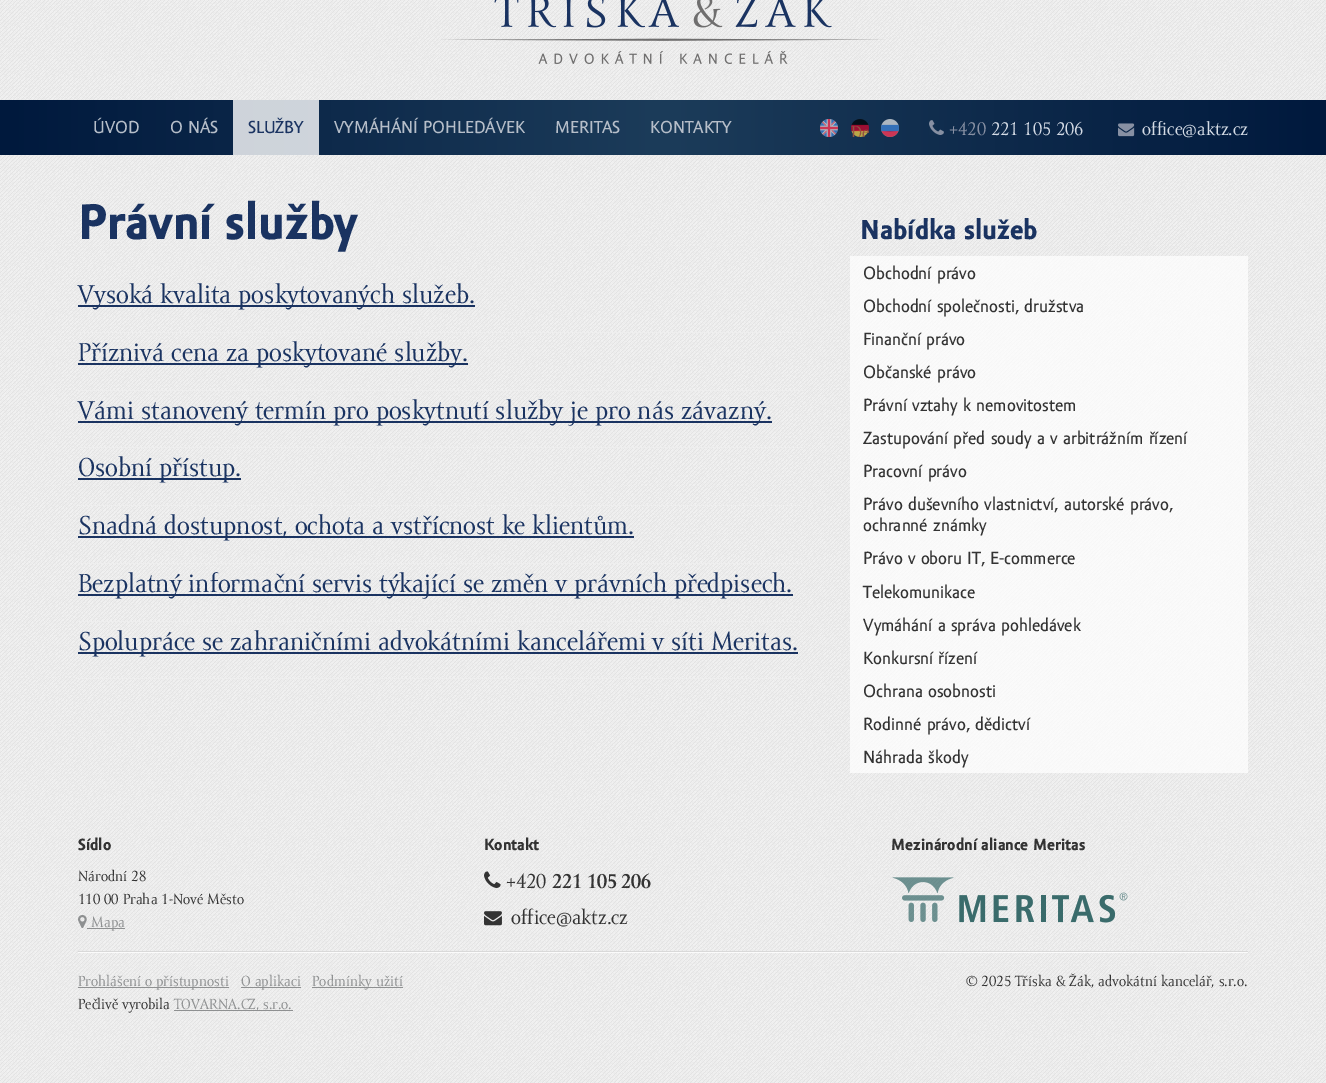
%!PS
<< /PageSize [1326 1083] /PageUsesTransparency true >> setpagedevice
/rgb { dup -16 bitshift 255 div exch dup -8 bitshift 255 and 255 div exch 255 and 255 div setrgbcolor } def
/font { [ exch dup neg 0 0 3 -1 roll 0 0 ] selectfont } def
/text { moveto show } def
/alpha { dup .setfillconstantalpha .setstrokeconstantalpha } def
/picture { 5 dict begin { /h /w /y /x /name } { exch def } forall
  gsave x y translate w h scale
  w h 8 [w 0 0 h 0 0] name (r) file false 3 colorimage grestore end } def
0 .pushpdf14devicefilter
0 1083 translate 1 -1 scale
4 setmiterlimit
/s1 { /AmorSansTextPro-Regular 16 font 16#B6BEC9 rgb } def
/s2 { /AmorSansTextPro-Regular 16 font 16#1A3361 rgb } def
/s3 { /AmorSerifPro-Regular 18 font 16#945340 rgb } def
/s4 { /AmorSerifPro-Regular 19 font 16#8790A3 rgb } def
/s5 { /AmorSerifPro-Regular 19 font 16#D4DBE5 rgb } def
/s6 { /AmorSansTextPro-Bold 47 font 16#1A3361 rgb } def
/s7 { /AmorSerifPro-Regular 27 font 16#1A3361 rgb } def
/s8 { /AmorSansTextPro-Bold 26 font 16#1A3361 rgb } def
/s9 { /AmorSansTextPro-Regular 16.25 font 16#333333 rgb } def
/s10 { /AmorSansTextPro-Bold 15.25 font 16#333333 rgb } def
/s11 { /AmorSerifPro-Regular 15.25 font 16#333333 rgb } def
/s12 { /AmorSerifPro-Regular 15.25 font 16#8E9091 rgb } def
/s13 { /AmorSerifPro-Regular 21 font 16#333333 rgb } def
/s14 { /AmorSerifPro-Bold 21 font 16#333333 rgb } def
16#FFFFFF rgb
0 0 1326 1083 rectfill
(pic1.raw) 0 0 1326 1083 picture
(pic2.raw) 441 0 444 64 picture
gsave 0 100 moveto 1326 100 lineto 1326 155 lineto 0 155 lineto closepath clip newpath
<< /ShadingType 2 /ColorSpace /DeviceRGB /Coords [0 128 1326 127] /Extend [true true] /Function << /FunctionType 3 /Domain [0 1] /Functions [<< /FunctionType 2 /Domain [0 1] /C0 [0 0.098 0.239] /C1 [0.11 0.235 0.353] /N 1 >> << /FunctionType 2 /Domain [0 1] /C0 [0.11 0.235 0.353] /C1 [0 0.098 0.239] /N 1 >>] /Bounds [0.5] /Encode [0 1 0 1] >> >> shfill grestore
s1
(ÚVOD) 93 133 text
(O NÁS) 170 133 text
0.8 alpha
16#FFFFFF rgb
233 100 86 55 rectfill
1 alpha
s2
(SLUŽBY) 248 133 text
s1
(VYMÁHÁNÍ POHLEDÁVEK) 334 133 text
(MERITAS) 555 133 text
(KONTAKTY) 650 133 text
(pic3.raw) 820 119 18 18 picture
(pic4.raw) 851 119 18 18 picture
gsave
851 119 18 18 rectclip
s3
(De) 851 138 text
grestore
(pic5.raw) 881 119 18 18 picture
(pic6.raw) 929 120 15 15 picture
s4
(+420) 949 135 text
s5
(221 105 206) 991 135 text
(pic7.raw) 1118 123 17 14 picture
(office@aktz.cz) 1142 135 text
s6
(Právní služby) 78 239 text
16#EEEEEE rgb
78 332 725 1 rectfill
16#1A3361 rgb
78 305 397 2 rectfill
s7
(Vysoká kvalita poskytovaných služeb.) 78 303 text
16#EEEEEE rgb
78 390 725 1 rectfill
16#1A3361 rgb
78 363 390 2 rectfill
(Příznivá cena za poskytované služby.) 78 361 text
16#EEEEEE rgb
78 447 725 1 rectfill
16#1A3361 rgb
78 421 694 2 rectfill
(Vámi stanovený termín pro poskytnutí služby je pro nás závazný.) 78 419 text
16#EEEEEE rgb
78 505 725 1 rectfill
16#1A3361 rgb
78 478 163 2 rectfill
(Osobní přístup.) 78 476 text
16#EEEEEE rgb
78 563 725 1 rectfill
16#1A3361 rgb
78 536 556 2 rectfill
(Snadná dostupnost, ochota a vstřícnost ke klientům.) 78 534 text
16#EEEEEE rgb
78 621 725 1 rectfill
16#1A3361 rgb
78 594 715 2 rectfill
(Bezplatný informační servis týkající se změn v právních předpisech.) 78 592 text
16#EEEEEE rgb
78 678 725 1 rectfill
16#1A3361 rgb
78 652 720 2 rectfill
(Spolupráce se zahraničními advokátními kancelářemi v síti Meritas.) 78 650 text
s8
(Nabídka služeb) 860 239 text
0.7 alpha
16#FFFFFF rgb
850 256 398 33 rectfill
1 alpha
s9
(Obchodní právo) 863 279 text
0.7 alpha
16#FFFFFF rgb
850 289 398 33 rectfill
1 alpha
s9
(Obchodní společnosti, družstva) 863 312 text
0.7 alpha
16#FFFFFF rgb
850 322 398 33 rectfill
1 alpha
s9
(Finanční právo) 863 345 text
0.7 alpha
16#FFFFFF rgb
850 355 398 33 rectfill
1 alpha
s9
(Občanské právo) 863 378 text
0.7 alpha
16#FFFFFF rgb
850 388 398 33 rectfill
1 alpha
s9
(Právní vztahy k nemovitostem) 863 411 text
0.7 alpha
16#FFFFFF rgb
850 421 398 33 rectfill
1 alpha
s9
(Zastupování před soudy a v arbitrážním řízení) 863 444 text
0.7 alpha
16#FFFFFF rgb
850 454 398 33 rectfill
1 alpha
s9
(Pracovní právo) 863 477 text
0.7 alpha
16#FFFFFF rgb
850 487 398 54 rectfill
1 alpha
s9
(Právo duševního vlastnictví, autorské právo,) 863 510 text
(ochranné známky) 863 531 text
0.7 alpha
16#FFFFFF rgb
850 541 398 34 rectfill
1 alpha
s9
(Právo v oboru IT, E-commerce) 863 564 text
0.7 alpha
16#FFFFFF rgb
850 575 398 33 rectfill
1 alpha
s9
(Telekomunikace) 863 598 text
0.7 alpha
16#FFFFFF rgb
850 608 398 33 rectfill
1 alpha
s9
(Vymáhání a správa pohledávek) 863 631 text
0.7 alpha
16#FFFFFF rgb
850 641 398 33 rectfill
1 alpha
s9
(Konkursní řízení) 863 664 text
0.7 alpha
16#FFFFFF rgb
850 674 398 33 rectfill
1 alpha
s9
(Ochrana osobnosti) 863 697 text
0.7 alpha
16#FFFFFF rgb
850 707 398 33 rectfill
1 alpha
s9
(Rodinné právo, dědictví) 863 730 text
0.7 alpha
16#FFFFFF rgb
850 740 398 33 rectfill
1 alpha
s9
(Náhrada škody) 863 763 text
s10
(Sídlo) 78 850 text
s11
(Národní 28) 78 881 text
(110 00 Praha 1-Nové Město) 78 904 text
(pic8.raw) 78 915 9 13 picture
16#8E9091 rgb
87 928 38 1 rectfill
(Mapa) 91 927 text
s10
(Kontakt) 484 850 text
(pic9.raw) 484 871 17 17 picture
s13
(+420) 506 888 text
s14
(221 105 206) 552 888 text
(pic10.raw) 484 911 18 15 picture
s13
(office@aktz.cz) 511 924 text
s10
(Mezinárodní aliance Meritas) 891 850 text
(pic11.raw) 892 877 236 46 picture
16#D9D9D9 rgb
78 951 1170 1 rectfill
16#FBFBFB rgb
78 952 1170 1 rectfill
16#8E9091 rgb
78 987 151 1 rectfill
s12
(Prohlášení o přístupnosti) 78 986 text
241 987 60 1 rectfill
(O aplikaci) 241 986 text
312 987 91 1 rectfill
(Podmínky užití) 312 986 text
s11
(© 2025 Tříska & Žák, advokátní kancelář, s.r.o.) 966 986 text
(Pečlivě vyrobila) 78 1009 text
16#8E9091 rgb
174 1010 119 1 rectfill
(TOVARNA.CZ, s.r.o.) 174 1009 text
.poppdf14devicefilter showpage
